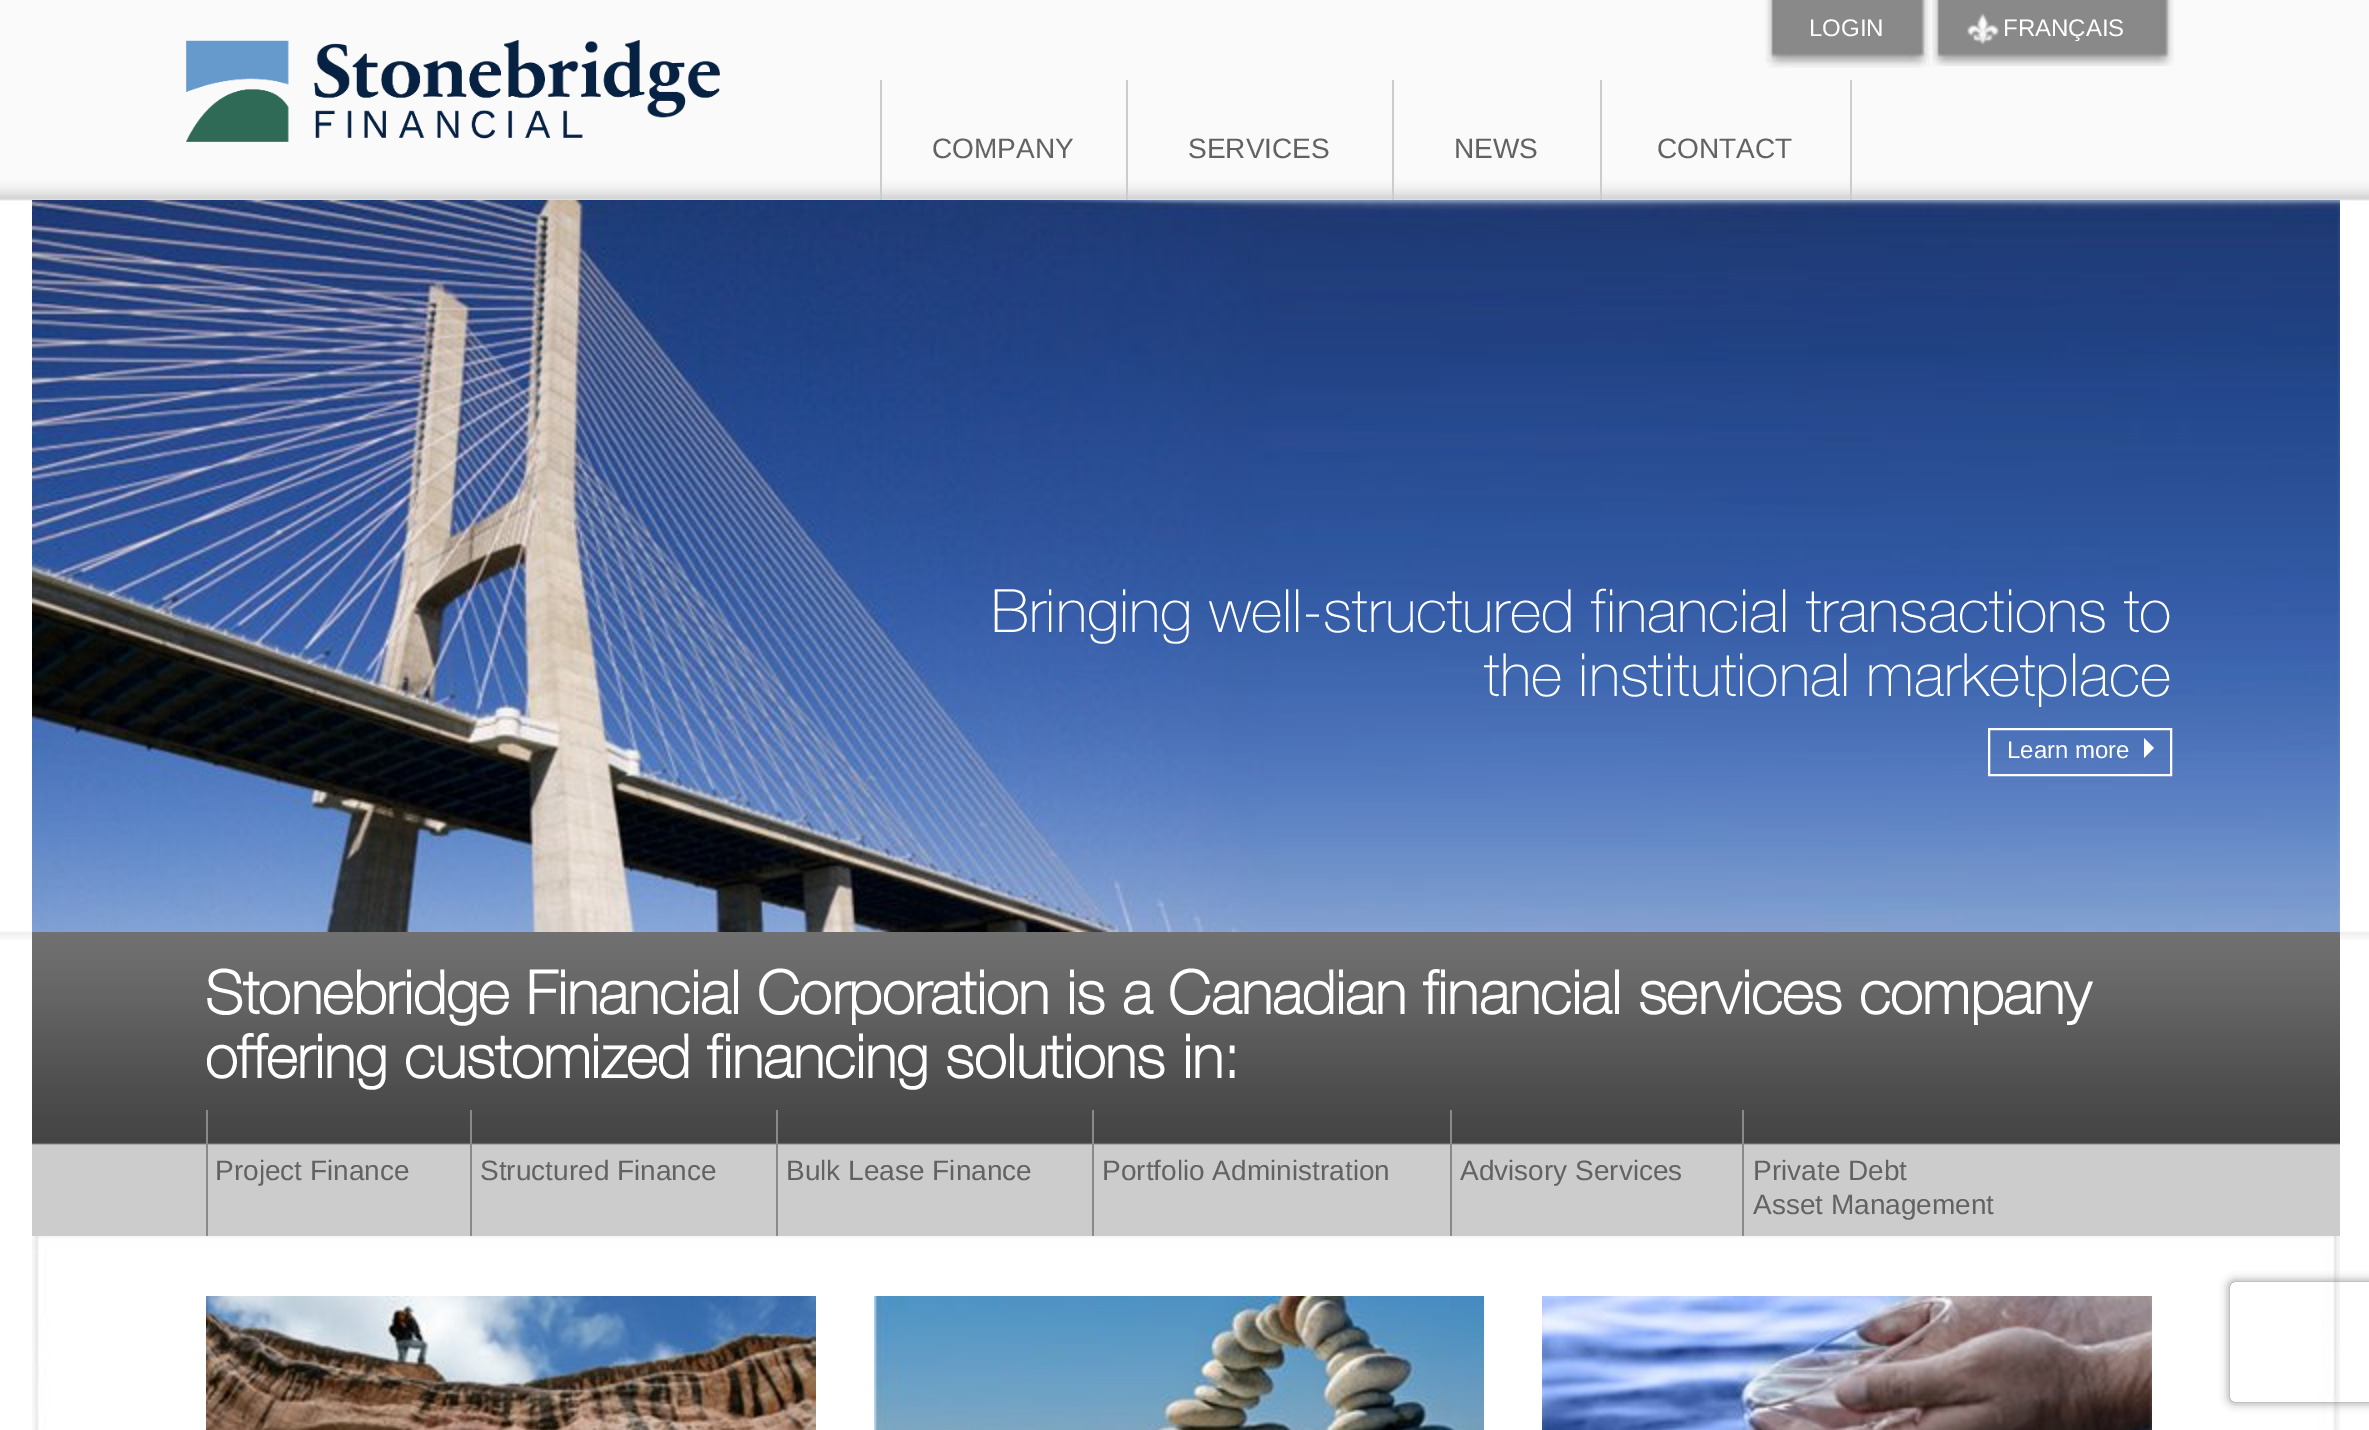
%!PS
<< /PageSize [2369 1430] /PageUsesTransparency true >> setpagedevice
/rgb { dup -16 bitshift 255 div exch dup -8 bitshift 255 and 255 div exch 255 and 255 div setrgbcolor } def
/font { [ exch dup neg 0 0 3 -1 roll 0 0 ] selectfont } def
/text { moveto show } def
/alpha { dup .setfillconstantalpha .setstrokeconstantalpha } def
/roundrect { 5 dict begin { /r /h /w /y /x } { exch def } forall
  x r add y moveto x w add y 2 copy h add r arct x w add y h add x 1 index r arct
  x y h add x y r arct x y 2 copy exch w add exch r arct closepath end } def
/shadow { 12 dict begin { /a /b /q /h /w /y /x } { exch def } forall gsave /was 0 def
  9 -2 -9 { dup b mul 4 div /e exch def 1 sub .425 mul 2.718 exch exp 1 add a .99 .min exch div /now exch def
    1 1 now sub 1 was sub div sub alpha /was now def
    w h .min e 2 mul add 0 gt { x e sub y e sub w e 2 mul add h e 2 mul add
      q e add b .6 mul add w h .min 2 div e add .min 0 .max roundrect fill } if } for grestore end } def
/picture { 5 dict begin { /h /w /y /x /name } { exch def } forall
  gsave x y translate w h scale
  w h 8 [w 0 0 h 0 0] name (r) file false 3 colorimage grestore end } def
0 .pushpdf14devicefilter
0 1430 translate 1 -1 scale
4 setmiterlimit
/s1 { /LiberationSans-Regular 24 font 16#FFFFFF rgb } def
/s2 { /LiberationSans-Regular 28 font 16#626262 rgb } def
/s3 { /HelveticaNeue-Thin 60 font 16#FFFFFF rgb } def
/s4 { /HelveticaNeue-Bold 60 font 16#FFFFFF rgb } def
16#FFFFFF rgb
0 0 2369 1430 rectfill
(pic1.raw) 0 0 2369 940 picture
(pic2.raw) 1765 0 166 68 picture
s1
(LOGIN) 1809 36 text
(pic3.raw) 1932 0 242 66 picture
(pic4.raw) 1967 13 32 32 picture
(FRANÇAIS) 2003 36 text
(pic5.raw) 186 40 534 102 picture
16#CCCCCC rgb
1126 80 2 120 rectfill
880 80 2 120 rectfill
s2
(COMPANY) 932 158 text
16#CCCCCC rgb
1392 80 2 120 rectfill
s2
(SERVICES) 1188 158 text
16#CCCCCC rgb
1600 80 2 120 rectfill
s2
(NEWS) 1454 158 text
16#CCCCCC rgb
1850 80 2 120 rectfill
s2
(CONTACT) 1657 158 text
(pic6.raw) 32 200 2308 732 picture
s3
(Bringing well-structured financial transactions to) 991 632 text
(the institutional marketplace) 1484 696 text
2 setlinewidth
1989 729 182 46 rectstroke
s1
(Learn more) 2007 758 text
2144 758 moveto 2144 738 lineto 2154 748 lineto closepath fill
16#CCCCCC rgb
32 1145 2308 91 rectfill
(pic7.raw) 32 932 2308 213 picture
s4
(Stonebridge Financial Corporation is a Canadian financial services company) 205 1014 text
(offering customized financing solutions in:) 205 1078 text
16#898989 rgb
206 1110 2 126 rectfill
s2
(Project Finance) 215 1180 text
16#898989 rgb
470 1110 2 126 rectfill
s2
(Structured Finance) 480 1180 text
16#898989 rgb
776 1110 2 126 rectfill
s2
(Bulk Lease Finance) 786 1180 text
16#898989 rgb
1092 1110 2 126 rectfill
s2
(Portfolio Administration) 1102 1180 text
16#898989 rgb
1450 1110 2 126 rectfill
s2
(Advisory Services) 1460 1180 text
16#898989 rgb
1742 1110 2 126 rectfill
s2
(Private Debt) 1753 1180 text
(Asset Management) 1753 1214 text
(pic8.raw) 32 1236 2308 194 picture
(pic9.raw) 206 1296 610 134 picture
(pic10.raw) 874 1296 610 134 picture
(pic11.raw) 1542 1296 610 134 picture
gsave
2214 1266 moveto 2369 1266 lineto 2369 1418 lineto 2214 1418 lineto closepath 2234 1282 moveto 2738 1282 lineto 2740 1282 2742 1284 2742 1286 curveto 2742 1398 lineto 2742 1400 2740 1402 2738 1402 curveto 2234 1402 lineto 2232 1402 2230 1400 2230 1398 curveto 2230 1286 lineto 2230 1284 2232 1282 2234 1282 curveto closepath eoclip newpath
16#808080 rgb
2230 1282 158 120 4 5 1 shadow
grestore
.poppdf14devicefilter showpage
